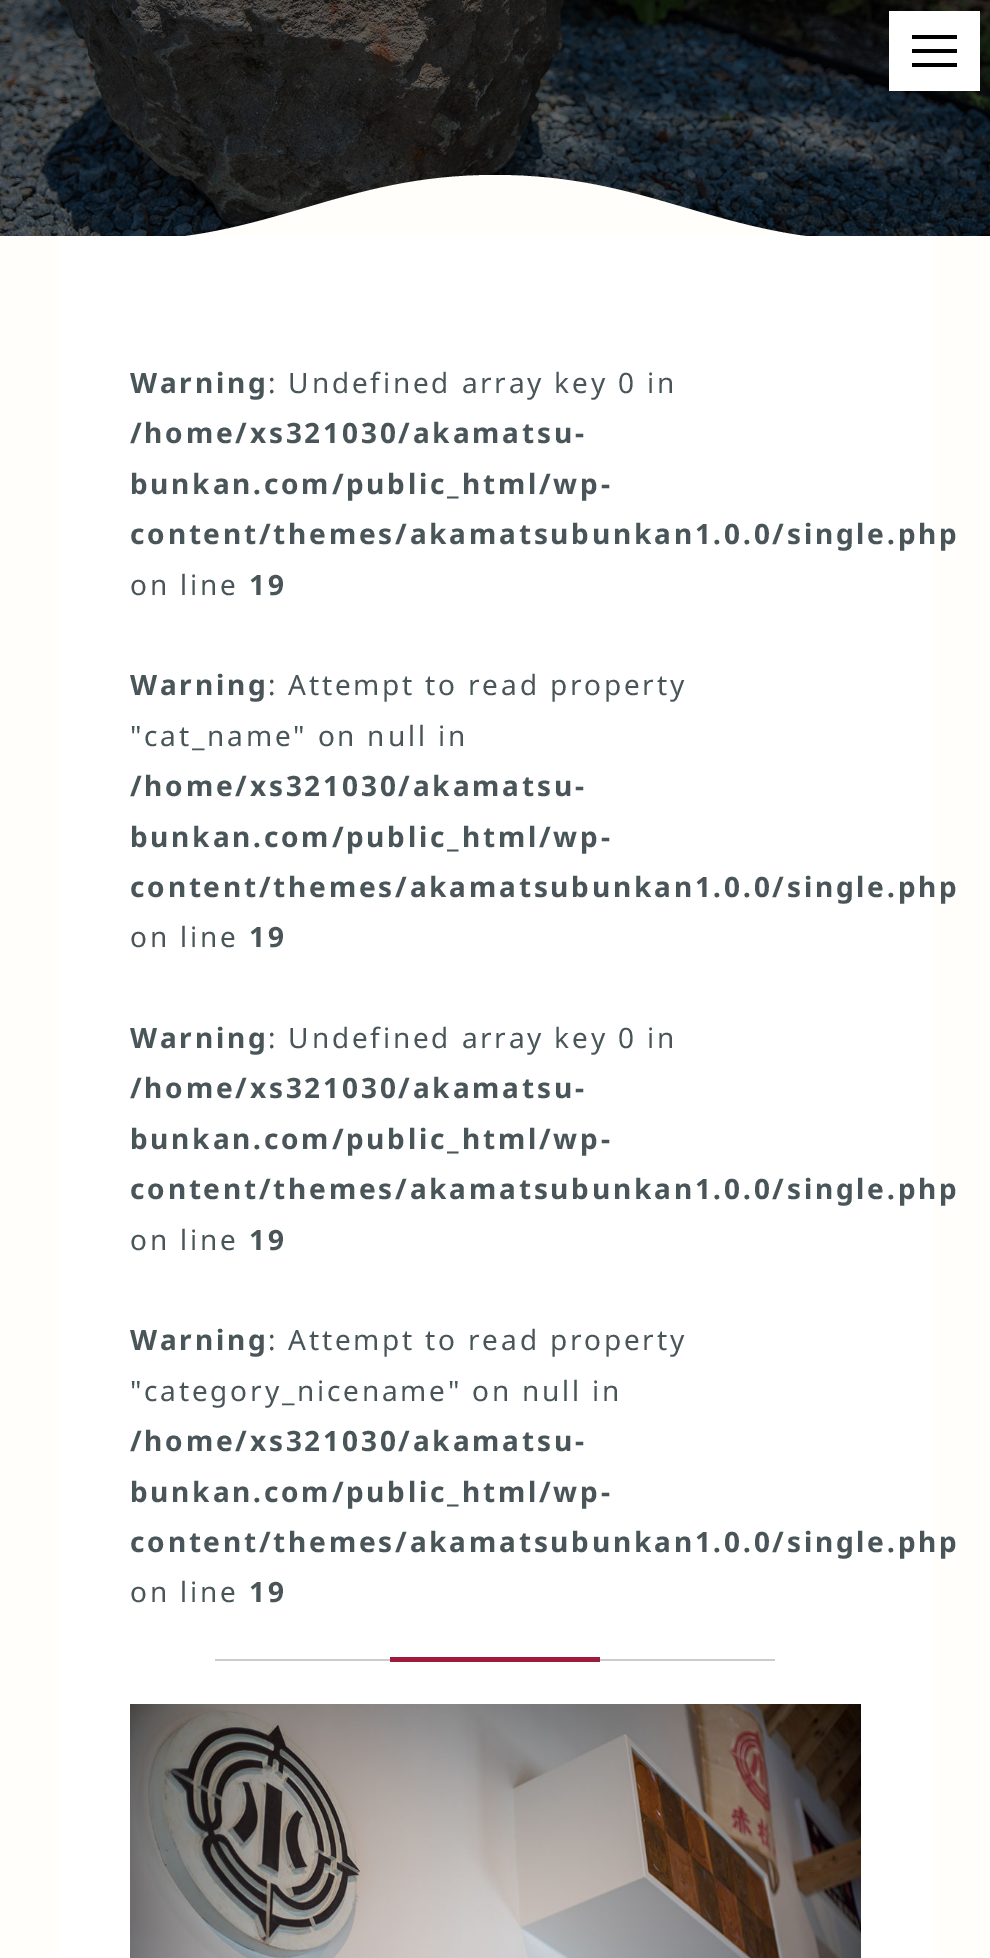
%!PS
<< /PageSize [990 1958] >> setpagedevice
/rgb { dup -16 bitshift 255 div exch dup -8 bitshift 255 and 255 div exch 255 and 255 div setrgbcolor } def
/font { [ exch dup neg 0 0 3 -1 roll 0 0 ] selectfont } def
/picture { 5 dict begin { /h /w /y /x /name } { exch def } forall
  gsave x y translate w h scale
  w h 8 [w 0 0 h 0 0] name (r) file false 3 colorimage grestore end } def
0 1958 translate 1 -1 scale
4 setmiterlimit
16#FFFEFB rgb
0 0 990 1958 rectfill
(pic1.raw) 0 0 990 236 picture
16#FFFFFF rgb
889 11 91 80 rectfill
16#000000 rgb
912 49 45 4 rectfill
912 35 45 4 rectfill
912 63 45 4 rectfill
16#FFFEFB rgb
113 241 moveto 878 241 lineto 720 241 652 175 495 175 curveto 339 175 271 241 113 241 curveto closepath fill
16#FFFFFF rgb
58 236 875 1722 rectfill
/NotoSans-Bold 28 font
16#495559 rgb
130 393 moveto 2.8 0 (Warning) ashow
/NotoSans-Regular 28 font
268 393 moveto 2.8 0 (: Undefined array key 0 in) ashow
/NotoSans-Bold 28 font
130 443 moveto 2.8 0 (/home/xs321030/akamatsu-) ashow
130 494 moveto 2.8 0 (bunkan.com/public_html/wp-) ashow
130 544 moveto 2.8 0 (content/themes/akamatsubunkan1.0.0/single.php) ashow
/NotoSans-Regular 28 font
130 595 moveto 2.8 0 (on line) ashow
/NotoSans-Bold 28 font
249 595 moveto 2.8 0 (19) ashow
130 695 moveto 2.8 0 (Warning) ashow
/NotoSans-Regular 28 font
268 695 moveto 2.8 0 (: Attempt to read property) ashow
130 746 moveto 2.8 0 ("cat_name" on null in) ashow
/NotoSans-Bold 28 font
130 796 moveto 2.8 0 (/home/xs321030/akamatsu-) ashow
130 847 moveto 2.8 0 (bunkan.com/public_html/wp-) ashow
130 897 moveto 2.8 0 (content/themes/akamatsubunkan1.0.0/single.php) ashow
/NotoSans-Regular 28 font
130 947 moveto 2.8 0 (on line) ashow
/NotoSans-Bold 28 font
249 947 moveto 2.8 0 (19) ashow
130 1048 moveto 2.8 0 (Warning) ashow
/NotoSans-Regular 28 font
268 1048 moveto 2.8 0 (: Undefined array key 0 in) ashow
/NotoSans-Bold 28 font
130 1098 moveto 2.8 0 (/home/xs321030/akamatsu-) ashow
130 1149 moveto 2.8 0 (bunkan.com/public_html/wp-) ashow
130 1199 moveto 2.8 0 (content/themes/akamatsubunkan1.0.0/single.php) ashow
/NotoSans-Regular 28 font
130 1250 moveto 2.8 0 (on line) ashow
/NotoSans-Bold 28 font
249 1250 moveto 2.8 0 (19) ashow
130 1350 moveto 2.8 0 (Warning) ashow
/NotoSans-Regular 28 font
268 1350 moveto 2.8 0 (: Attempt to read property) ashow
130 1401 moveto 2.8 0 ("category_nicename" on null in) ashow
/NotoSans-Bold 28 font
130 1451 moveto 2.8 0 (/home/xs321030/akamatsu-) ashow
130 1502 moveto 2.8 0 (bunkan.com/public_html/wp-) ashow
130 1552 moveto 2.8 0 (content/themes/akamatsubunkan1.0.0/single.php) ashow
/NotoSans-Regular 28 font
130 1602 moveto 2.8 0 (on line) ashow
/NotoSans-Bold 28 font
249 1602 moveto 2.8 0 (19) ashow
16#CCCCCC rgb
215 1659 560 2 rectfill
16#9E1B3B rgb
390 1657 210 5 rectfill
(pic2.raw) 130 1704 731 254 picture
showpage
